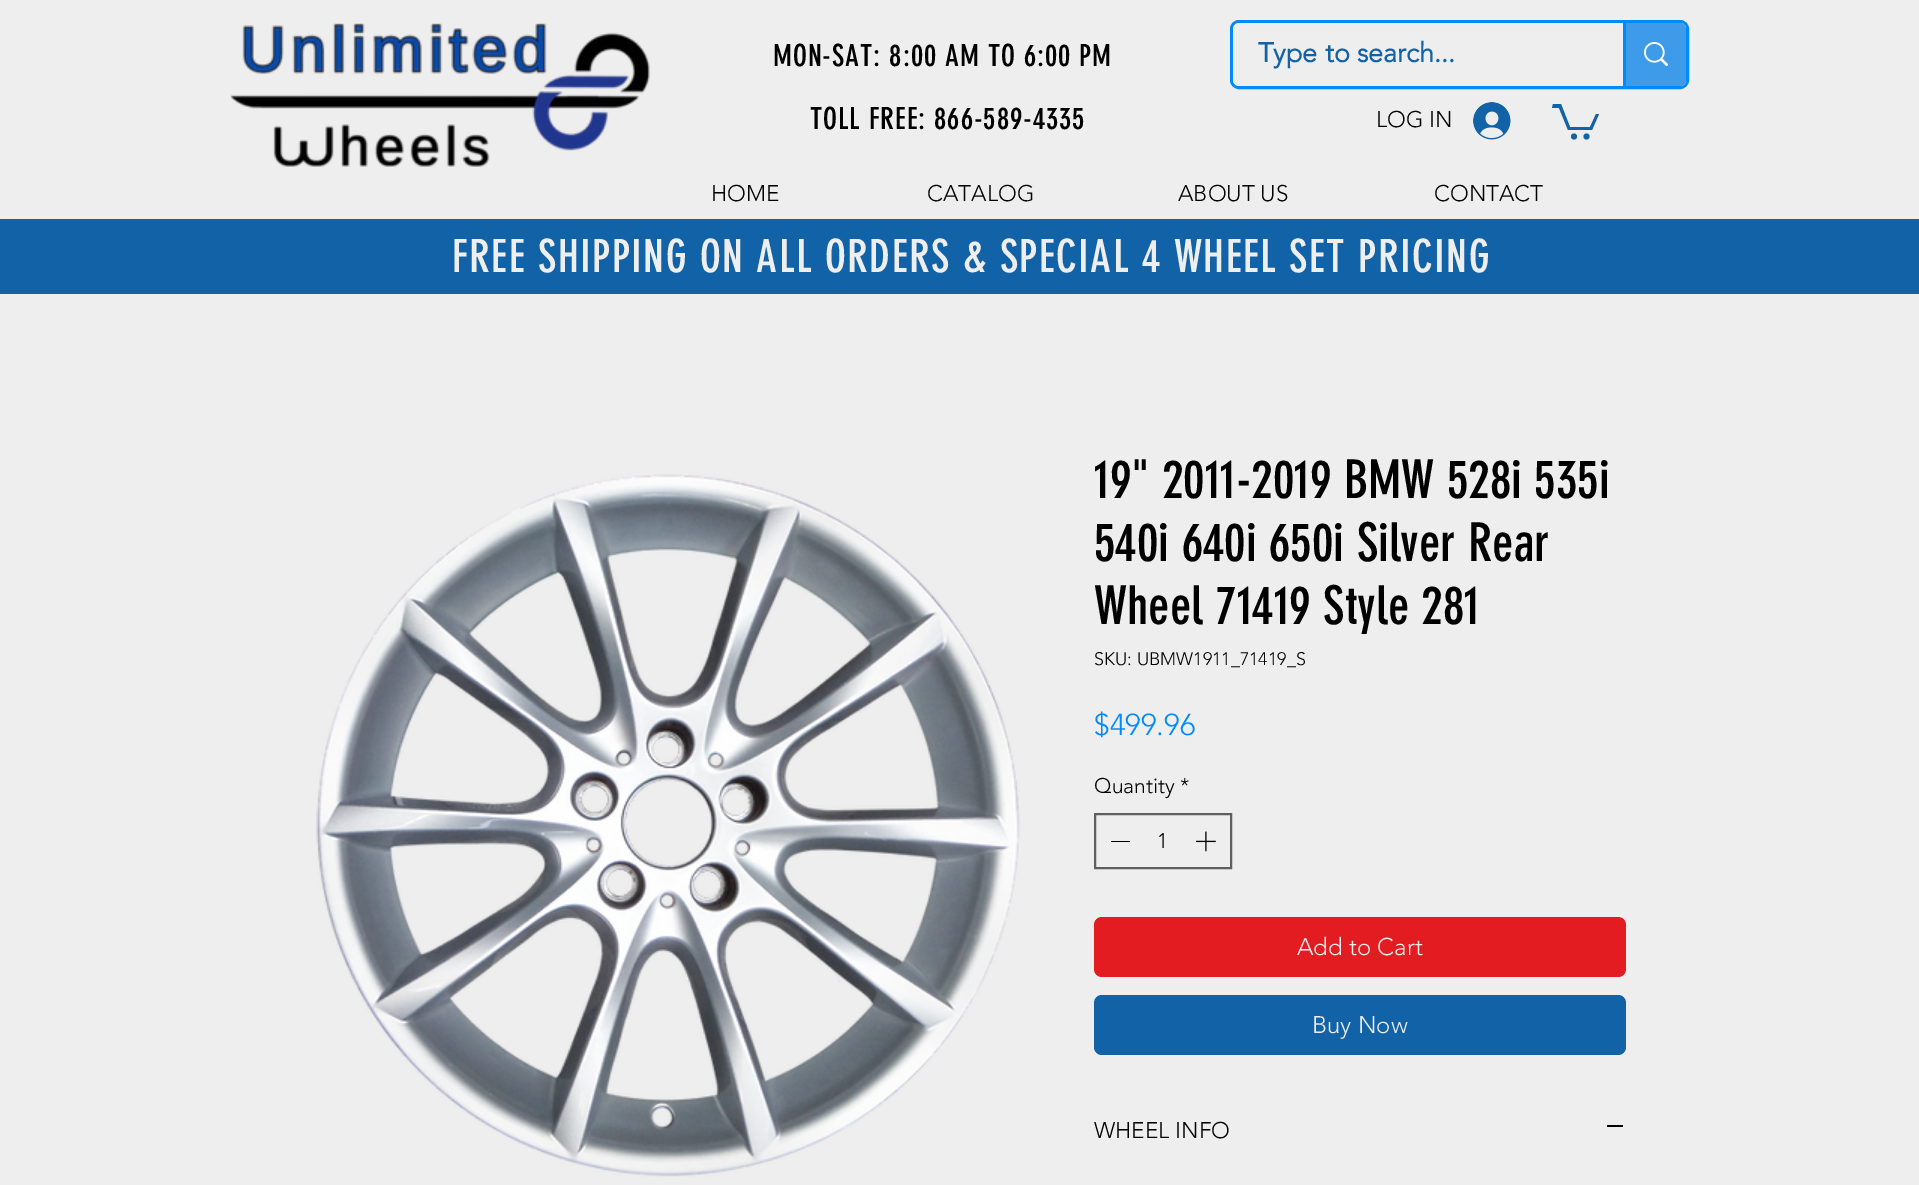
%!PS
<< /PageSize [1919 1185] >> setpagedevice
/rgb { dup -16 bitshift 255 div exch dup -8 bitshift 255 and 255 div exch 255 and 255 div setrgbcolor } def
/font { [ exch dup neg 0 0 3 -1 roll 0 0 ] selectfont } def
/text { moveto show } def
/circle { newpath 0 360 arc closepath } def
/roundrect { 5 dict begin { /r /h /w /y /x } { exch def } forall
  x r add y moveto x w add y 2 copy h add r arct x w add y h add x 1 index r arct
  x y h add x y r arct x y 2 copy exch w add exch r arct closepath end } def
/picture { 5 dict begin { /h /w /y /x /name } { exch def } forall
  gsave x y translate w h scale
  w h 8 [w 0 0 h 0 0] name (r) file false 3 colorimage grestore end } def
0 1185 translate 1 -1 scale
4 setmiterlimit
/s1 { /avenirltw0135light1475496-Bold 27 font 16#1162A6 rgb } def
/s2 { /avenirltw0135light1475496-Light 22.5 font 16#000000 rgb } def
/s3 { /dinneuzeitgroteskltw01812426-Regular 52.5 font 16#000000 rgb } def
/s4 { /avenirltw0135light1475496-Light 18 font 16#000000 rgb } def
/s5 { /avenirltw0135light1475496-Light 30 font 16#008AFC rgb } def
/s6 { /avenirltw0135light1475496-Light 21 font 16#000000 rgb } def
/s7 { /avenirltw0135light1475496-Light 24 font 16#EEEEEE rgb } def
16#EEEEEE rgb
0 0 1919 1185 rectfill
(pic1.raw) 230 23 420 144 picture
/dinneuzeitgroteskltw01812426-Regular 30 font
16#000000 rgb
773 66 moveto 0.9 0 (MON-SAT: 8:00 AM TO 6:00 PM) ashow
16#008AFC rgb
3 setlinewidth
1231.5 21.5 456 66 7.5 roundrect stroke
16#EEEEEE rgb
1233 23 453 63 6 roundrect fill
s1
(Type to search...) 1258 62 text
16#3D9BE9 rgb
1623 23 moveto 1680 23 lineto 1683.5 23 1686 25.5 1686 29 curveto 1686 80 lineto 1686 83.5 1683.5 86 1680 86 curveto 1623 86 lineto closepath fill
16#008AFC rgb
1623 23 3 63 rectfill
(pic2.raw) 1644 42 24 24 picture
/dinneuzeitgroteskltw01812426-Regular 30 font
16#000000 rgb
810 129 moveto 0.9 0 (TOLL FREE: 866-589-4335) ashow
s2
(LOG IN) 1376 127 text
(pic3.raw) 1473 102 38 38 picture
16#1162A6 rgb
1599 114 moveto 1592 130 lineto 1568 130 lineto 1559 108 lineto 1552 108 lineto 1553 104 lineto 1561 104 lineto 1570 127 lineto 1590 127 lineto 1596 114 lineto fill
1586.5 136.5 3 circle fill
1574 136.5 3 circle fill
s2
(HOME) 711 201 text
(CATALOG) 927 201 text
(ABOUT US) 1178 201 text
(CONTACT) 1434 201 text
16#1162A6 rgb
0 219 1919 75 rectfill
/dinneuzeitgroteskltw01812426-Regular 45 font
16#EEEEEE rgb
452 272 moveto 1.35 0 (FREE SHIPPING ON ALL ORDERS & SPECIAL 4 WHEEL SET PRICING) ashow
(pic4.raw) 316 474 704 703 picture
s3
(19" 2011-2019 BMW 528i 535i) 1094 498 text
(540i 640i 650i Silver Rear) 1094 561 text
(Wheel 71419 Style 281) 1094 624 text
s4
(SKU: UBMW1911_71419_S) 1094 665 text
s5
($499.96) 1094 735 text
s6
(Quantity) 1094 793 text
(*) 1180 793 text
16#5F5F5F rgb
2 setlinewidth
1095 814 136 54 rectstroke
16#000000 rgb
1111 841 19 1 rectfill
(1) 1157 848 text
(pic5.raw) 1196 831 20 21 picture
16#E21C21 rgb
1094 917 532 60 8 roundrect fill
s7
(Add to Cart) 1297 955 text
16#1162A6 rgb
1094 995 532 60 8 roundrect fill
s7
(Buy Now) 1312 1033 text
s2
(WHEEL INFO) 1094 1138 text
1607 1125 16 2 rectfill
showpage
